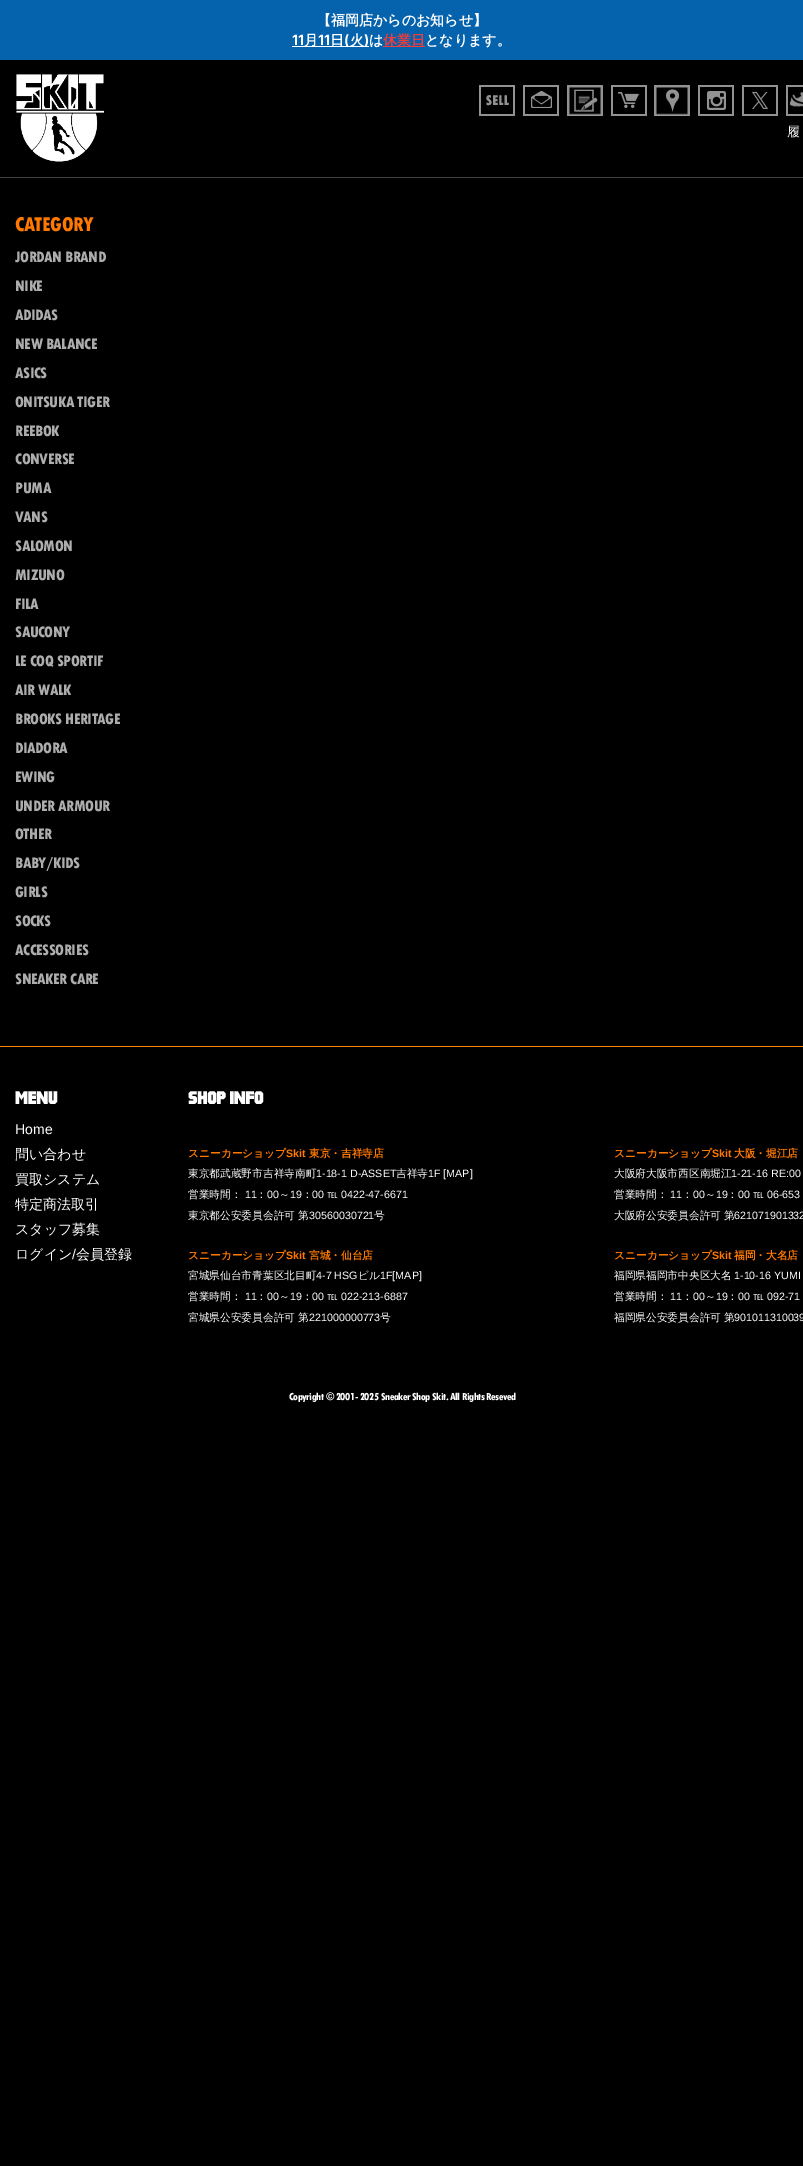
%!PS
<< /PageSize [803 2166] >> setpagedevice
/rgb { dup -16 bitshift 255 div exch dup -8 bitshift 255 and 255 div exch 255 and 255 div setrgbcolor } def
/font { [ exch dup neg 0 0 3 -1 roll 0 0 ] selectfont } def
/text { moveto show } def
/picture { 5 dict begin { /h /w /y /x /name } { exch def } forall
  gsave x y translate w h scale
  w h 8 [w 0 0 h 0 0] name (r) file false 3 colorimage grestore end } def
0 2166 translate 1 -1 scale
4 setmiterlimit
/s1 { /WenQuanYiZenHei-Bold 14 font 16#FFFFFF rgb } def
/s2 { /Inter-Bold 14 font 16#FFFFFF rgb } def
/s3 { /WenQuanYiZenHei-Bold 14 font 16#ED3D3D rgb } def
/s4 { /WenQuanYiZenHei-Medium 13 font 16#FFFFFF rgb } def
/s5 { /LiberationSans-Regular 14 font 16#FFFFFF rgb } def
/s6 { /WenQuanYiZenHei-Medium 14 font 16#FFFFFF rgb } def
/s7 { /WenQuanYiZenHei-Bold 10.7 font 16#FF7800 rgb } def
/s8 { /LiberationSans-Bold 10.7 font 16#FF7800 rgb } def
/s9 { /WenQuanYiZenHei-Medium 10.7 font 16#FFFFFF rgb } def
/s10 { /LiberationSans-Regular 10.7 font 16#FFFFFF rgb } def
16#000000 rgb
0 0 803 2166 rectfill
16#0562AD rgb
0 0 803 60 rectfill
s1
(【福岡店からのお知らせ】) 317 25 text
s2
(11) 292 45 text
292 46 77 1 rectfill
s1
(月) 304 45 text
s2
(11) 318 45 text
s1
(日) 330 45 text
s2
(\() 344 45 text
s1
(火) 350 45 text
s2
(\)) 364 45 text
s1
(は) 369 45 text
16#ED3D3D rgb
383 46 42 1 rectfill
(休業日) 383 45 text
s1
(となります。) 425 45 text
16#434343 rgb
0 177 803 1 rectfill
(pic1.raw) 16 74 88 88 picture
(pic2.raw) 479 85 36 31 picture
(pic3.raw) 523 85 36 31 picture
(pic4.raw) 567 85 36 31 picture
(pic5.raw) 611 85 36 31 picture
(pic6.raw) 654 85 36 31 picture
(pic7.raw) 698 85 36 31 picture
(pic8.raw) 742 85 36 31 picture
(pic9.raw) 786 85 17 31 picture
s4
(履) 787 136 text
/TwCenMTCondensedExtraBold-ExtraBold 21 font
16#FF7800 rgb
15 231 moveto -0.5 0 (CATEGORY) ashow
/TwCenMTCondensedExtraBold-ExtraBold 16 font
16#ADADAD rgb
15 262 moveto -0.5 0 (JORDAN BRAND) ashow
15 291 moveto -0.5 0 (NIKE) ashow
15 320 moveto -0.5 0 (ADIDAS) ashow
15 349 moveto -0.5 0 (NEW BALANCE) ashow
15 378 moveto -0.5 0 (ASICS) ashow
15 407 moveto -0.5 0 (ONITSUKA TIGER) ashow
15 436 moveto -0.5 0 (REEBOK) ashow
15 464 moveto -0.5 0 (CONVERSE) ashow
15 493 moveto -0.5 0 (PUMA) ashow
15 522 moveto -0.5 0 (VANS) ashow
15 551 moveto -0.5 0 (SALOMON) ashow
15 580 moveto -0.5 0 (MIZUNO) ashow
15 609 moveto -0.5 0 (FILA) ashow
15 637 moveto -0.5 0 (SAUCONY) ashow
15 666 moveto -0.5 0 (LE COQ SPORTIF) ashow
15 695 moveto -0.5 0 (AIR WALK) ashow
15 724 moveto -0.5 0 (BROOKS HERITAGE) ashow
15 753 moveto -0.5 0 (DIADORA) ashow
15 782 moveto -0.5 0 (EWING) ashow
15 811 moveto -0.5 0 (UNDER ARMOUR) ashow
15 839 moveto -0.5 0 (OTHER) ashow
15 868 moveto -0.5 0 (BABY/KIDS) ashow
15 897 moveto -0.5 0 (GIRLS) ashow
15 926 moveto -0.5 0 (SOCKS) ashow
15 955 moveto -0.5 0 (ACCESSORIES) ashow
15 984 moveto -0.5 0 (SNEAKER CARE) ashow
16#FF7E00 rgb
0 1046 803 1 rectfill
(pic10.raw) 15 1091 43 13 picture
s5
(Home) 15 1134 text
s6
(問い合わせ) 15 1159 text
(買取システム) 15 1184 text
(特定商法取引) 15 1209 text
(スタッフ募集) 15 1234 text
(ログイン) 15 1259 text
s5
(/) 72 1259 text
s6
(会員登録) 76 1259 text
(pic11.raw) 188 1091 76 13 picture
s7
(スニーカーショップ) 188 1157 text
s8
(Skit) 286 1157 text
s7
(東京・吉祥寺店) 309 1157 text
s9
(東京都武蔵野市吉祥寺南町) 188 1177 text
s10
(1-18-1 D-ASSET) 316 1177 text
s9
(吉祥寺) 396 1177 text
s10
(1F [MAP]) 428 1177 text
s9
(営業時間：) 188 1198 text
s10
(11) 245 1198 text
s9
(：) 256 1198 text
s10
(00) 267 1198 text
s9
(～) 279 1198 text
s10
(19) 290 1198 text
s9
(：) 302 1198 text
s10
(00) 312 1198 text
s9
(℡) 327 1198 text
s10
(0422-47-6671) 341 1198 text
s9
(東京都公安委員会許可 第) 188 1219 text
s10
(30560030721) 309 1219 text
s9
(号) 374 1219 text
s7
(スニーカーショップ) 614 1157 text
s8
(Skit) 712 1157 text
s7
(大阪・堀江店) 734 1157 text
s9
(大阪府大阪市西区南堀江) 614 1177 text
s10
(1-21-16 RE:00) 731 1177 text
s9
(営業時間：) 614 1198 text
s10
(11) 670 1198 text
s9
(：) 682 1198 text
s10
(00) 693 1198 text
s9
(～) 705 1198 text
s10
(19) 716 1198 text
s9
(：) 727 1198 text
s10
(00) 738 1198 text
s9
(℡) 753 1198 text
s10
(06-653) 767 1198 text
s9
(大阪府公安委員会許可 第) 614 1219 text
s10
(621071901332) 734 1219 text
s7
(スニーカーショップ) 188 1259 text
s8
(Skit) 286 1259 text
s7
(宮城・仙台店) 309 1259 text
s9
(宮城県仙台市青葉区北目町) 188 1279 text
s10
(4-7 HSG) 316 1279 text
s9
(ビル) 358 1279 text
s10
(1F[MAP]) 380 1279 text
s9
(営業時間：) 188 1300 text
s10
(11) 245 1300 text
s9
(：) 256 1300 text
s10
(00) 267 1300 text
s9
(～) 279 1300 text
s10
(19) 290 1300 text
s9
(：) 302 1300 text
s10
(00) 312 1300 text
s9
(℡) 327 1300 text
s10
(022-213-6887) 341 1300 text
s9
(宮城県公安委員会許可 第) 188 1321 text
s10
(221000000773) 309 1321 text
s9
(号) 380 1321 text
s7
(スニーカーショップ) 614 1259 text
s8
(Skit) 712 1259 text
s7
(福岡・大名店) 734 1259 text
s9
(福岡県福岡市中央区大名) 614 1279 text
s10
(1-10-16 YUMI) 734 1279 text
s9
(営業時間：) 614 1300 text
s10
(11) 670 1300 text
s9
(：) 682 1300 text
s10
(00) 693 1300 text
s9
(～) 705 1300 text
s10
(19) 716 1300 text
s9
(：) 727 1300 text
s10
(00) 738 1300 text
s9
(℡) 753 1300 text
s10
(092-71) 767 1300 text
s9
(福岡県公安委員会許可 第) 614 1321 text
s10
(901011310039) 734 1321 text
/TwCenMTCondensedExtraBold-ExtraBold 10.7 font
289 1400 moveto -0.5 0 (Copyright © 2001- 2025 Sneaker Shop Skit. All Rights Reseved) ashow
showpage
